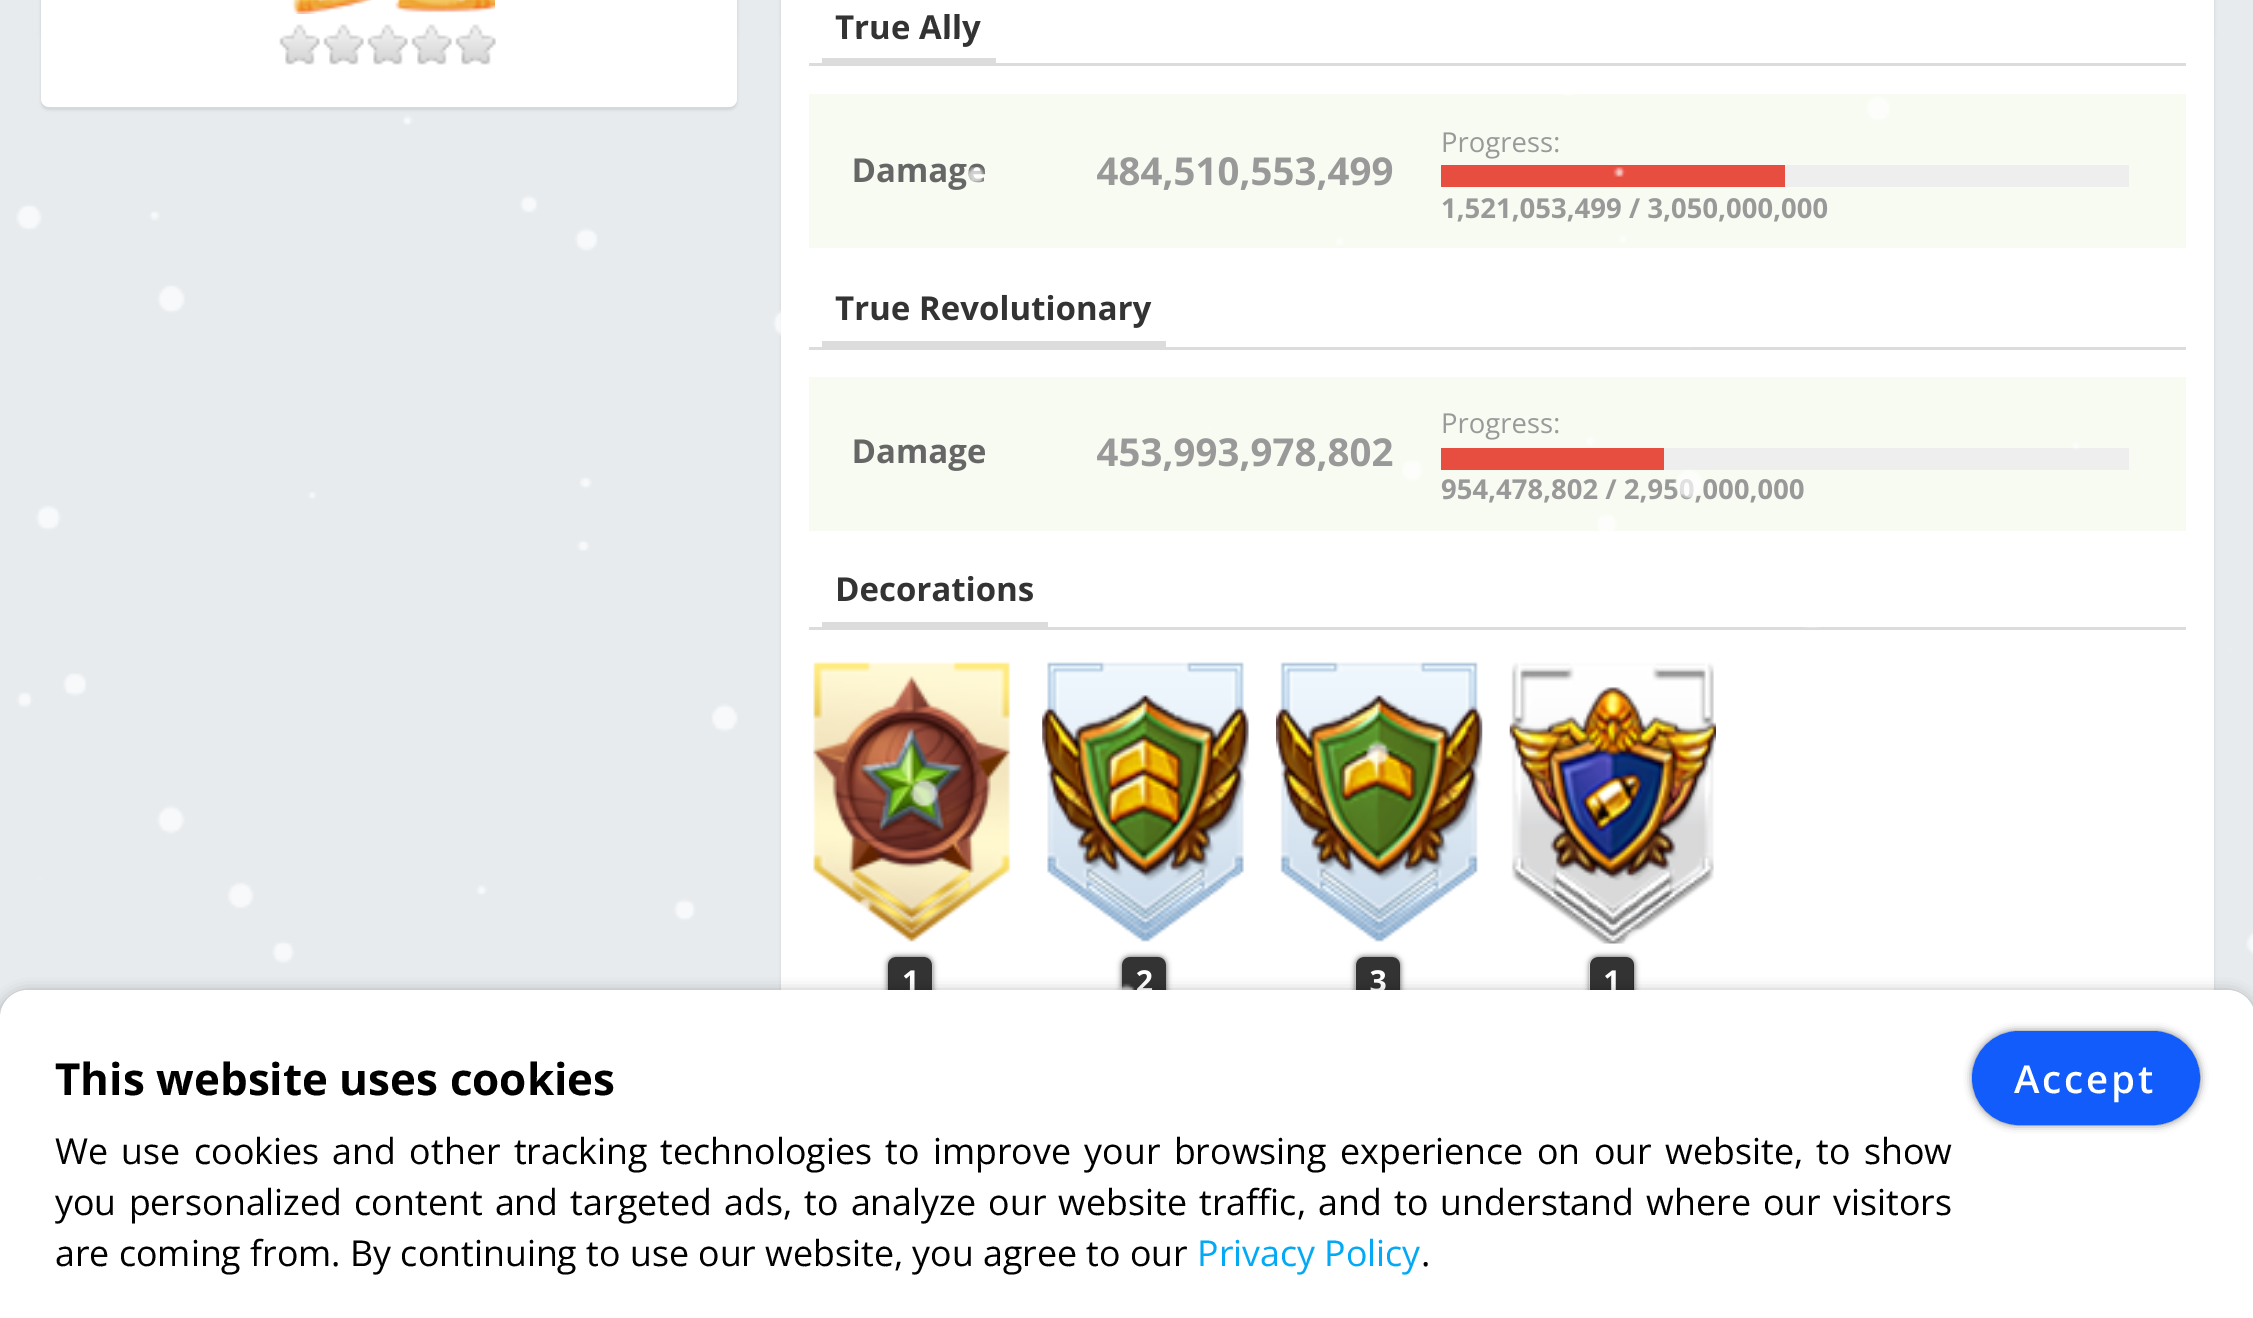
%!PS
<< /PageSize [2253 1318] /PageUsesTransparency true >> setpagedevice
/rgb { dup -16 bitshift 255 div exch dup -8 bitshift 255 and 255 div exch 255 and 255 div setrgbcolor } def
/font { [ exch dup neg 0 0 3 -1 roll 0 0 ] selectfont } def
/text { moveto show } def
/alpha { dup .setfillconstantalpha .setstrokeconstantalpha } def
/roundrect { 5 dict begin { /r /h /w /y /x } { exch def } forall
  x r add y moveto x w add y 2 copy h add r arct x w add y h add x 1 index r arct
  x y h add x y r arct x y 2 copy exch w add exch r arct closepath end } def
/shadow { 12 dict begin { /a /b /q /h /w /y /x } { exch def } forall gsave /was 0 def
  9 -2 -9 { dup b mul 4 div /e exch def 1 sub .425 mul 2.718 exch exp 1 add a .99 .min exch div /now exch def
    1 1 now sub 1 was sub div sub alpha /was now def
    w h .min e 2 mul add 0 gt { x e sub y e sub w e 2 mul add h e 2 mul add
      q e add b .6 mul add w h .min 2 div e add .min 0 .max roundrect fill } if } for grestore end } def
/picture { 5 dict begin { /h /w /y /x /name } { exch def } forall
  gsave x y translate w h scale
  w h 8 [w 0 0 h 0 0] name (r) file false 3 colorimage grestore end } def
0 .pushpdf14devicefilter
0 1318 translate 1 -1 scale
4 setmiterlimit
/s1 { /OpenSans-Bold 33 font 16#333333 rgb } def
/s2 { /OpenSans-Bold 33 font 16#666666 rgb } def
/s3 { /OpenSans-Bold 38.5 font 16#999999 rgb } def
/s4 { /OpenSans-Regular 27.5 font 16#999999 rgb } def
/s5 { /OpenSans-Bold 27.5 font 16#999999 rgb } def
/s6 { /OpenSans-Bold 30 font 16#FFFFFF rgb } def
/s7 { /OpenSans-Bold 44 font 16#000000 rgb } def
/s8 { /OpenSans-Regular 35.75 font 16#000000 rgb } def
/s9 { /OpenSans-Regular 35.75 font 16#03A9F4 rgb } def
16#E7EBEE rgb
0 0 2253 1318 rectfill
16#000000 rgb
41 -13 696 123 8 1.5 0.1 shadow
16#FFFFFF rgb
41 -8 696 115 8 roundrect fill
(pic1.raw) 291 0 204 14 picture
(pic2.raw) 279 24 217 41 picture
(pic3.raw) 279 24 217 41 picture
16#000000 rgb
781 -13 1433 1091 8 1.5 0.1 shadow
16#FFFFFF rgb
781 0 1433 990 rectfill
16#DCDCDC rgb
809 63 1377 3 rectfill
822 58 174 5 rectfill
s1
(True Ally) 835 39 text
16#F7FBF1 rgb
809 94 1377 154 rectfill
s2
(Damage) 852 182 text
s3
(484,510,553,499) 1096 185 text
s4
(Progress:) 1441 152 text
16#EEEEEE rgb
1785 165 344 22 rectfill
16#E84E40 rgb
1441 165 344 22 rectfill
s5
(1,521,053,499 / 3,050,000,000) 1441 218 text
16#DCDCDC rgb
809 347 1377 3 rectfill
822 341 344 6 rectfill
s1
(True Revolutionary) 835 320 text
16#F7FBF1 rgb
809 377 1377 154 rectfill
s2
(Damage) 852 463 text
s3
(453,993,978,802) 1096 466 text
s4
(Progress:) 1441 433 text
16#EEEEEE rgb
1664 448 465 22 rectfill
16#E84E40 rgb
1441 448 223 22 rectfill
s5
(954,478,802 / 2,950,000,000) 1441 499 text
16#DCDCDC rgb
809 627 1377 3 rectfill
822 622 226 5 rectfill
s1
(Decorations) 835 601 text
(pic4.raw) 813 662 198 280 picture
(pic5.raw) 813 676 198 197 picture
gsave
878 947 moveto 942 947 lineto 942 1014 lineto 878 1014 lineto closepath 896 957 moveto 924 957 lineto 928.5 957 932 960.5 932 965 curveto 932 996 lineto 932 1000.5 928.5 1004 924 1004 curveto 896 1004 lineto 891.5 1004 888 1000.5 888 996 curveto 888 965 lineto 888 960.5 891.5 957 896 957 curveto closepath eoclip newpath
16#000000 rgb
888 957 44 47 8 3 0.7 shadow
grestore
0.8 alpha
16#000000 rgb
888 957 44 47 8 roundrect fill
1 alpha
s6
(1) 902 992 text
(pic6.raw) 1047 662 197 280 picture
(pic7.raw) 1042 695 207 186 picture
gsave
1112 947 moveto 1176 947 lineto 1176 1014 lineto 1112 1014 lineto closepath 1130 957 moveto 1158 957 lineto 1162.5 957 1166 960.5 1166 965 curveto 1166 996 lineto 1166 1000.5 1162.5 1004 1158 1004 curveto 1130 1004 lineto 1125.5 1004 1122 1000.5 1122 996 curveto 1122 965 lineto 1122 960.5 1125.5 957 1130 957 curveto closepath eoclip newpath
16#000000 rgb
1122 957 44 47 8 3 0.7 shadow
grestore
0.8 alpha
16#000000 rgb
1122 957 44 47 8 roundrect fill
1 alpha
s6
(2) 1136 992 text
(pic8.raw) 1280 662 198 280 picture
(pic9.raw) 1276 695 207 186 picture
gsave
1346 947 moveto 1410 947 lineto 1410 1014 lineto 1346 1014 lineto closepath 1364 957 moveto 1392 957 lineto 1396.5 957 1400 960.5 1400 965 curveto 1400 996 lineto 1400 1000.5 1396.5 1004 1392 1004 curveto 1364 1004 lineto 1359.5 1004 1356 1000.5 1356 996 curveto 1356 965 lineto 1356 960.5 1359.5 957 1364 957 curveto closepath eoclip newpath
16#000000 rgb
1356 957 44 47 8 3 0.7 shadow
grestore
0.8 alpha
16#000000 rgb
1356 957 44 47 8 roundrect fill
1 alpha
s6
(3) 1370 992 text
(pic10.raw) 1511 662 203 282 picture
(pic11.raw) 1509 687 207 194 picture
gsave
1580 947 moveto 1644 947 lineto 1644 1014 lineto 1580 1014 lineto closepath 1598 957 moveto 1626 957 lineto 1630.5 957 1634 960.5 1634 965 curveto 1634 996 lineto 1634 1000.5 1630.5 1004 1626 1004 curveto 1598 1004 lineto 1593.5 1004 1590 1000.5 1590 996 curveto 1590 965 lineto 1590 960.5 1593.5 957 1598 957 curveto closepath eoclip newpath
16#000000 rgb
1590 957 44 47 8 3 0.7 shadow
grestore
0.8 alpha
16#000000 rgb
1590 957 44 47 8 roundrect fill
1 alpha
s6
(1) 1603 992 text
(pic12.raw) 16 37 2237 953 picture
16#000000 rgb
0 993 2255 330 28 7 0.35 shadow
16#FFFFFF rgb
28 990 moveto 2227 990 lineto 2242.5 990 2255 1002.5 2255 1018 curveto 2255 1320 lineto 0 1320 lineto 0 1018 lineto 0 1002.5 12.5 990 28 990 curveto closepath fill
s7
(This website uses cookies) 55 1095 text
1972 1031 228 94 47 4 0.5 shadow
16#115CFA rgb
1973.5 1032.5 225 91 45.5 roundrect gsave fill grestore
3 setlinewidth
stroke
/OpenSans-SemiBold 38.5 font
16#FFFFFF rgb
2014 1093 moveto 2.75 0 (Accept) ashow
/OpenSans-Regular 35.75 font
16#000000 rgb
55 1164 moveto 4.1 0 32 (We use cookies and other tracking technologies to improve your browsing experience on our website, to show) widthshow
55 1215 moveto 2.9 0 32 (you personalized content and targeted ads, to analyze our website traffic, and to understand where our visitors) widthshow
(are coming from. By continuing to use our website, you agree to our) 55 1266 text
s9
(Privacy Policy) 1197 1266 text
s8
(.) 1421 1266 text
.poppdf14devicefilter showpage
